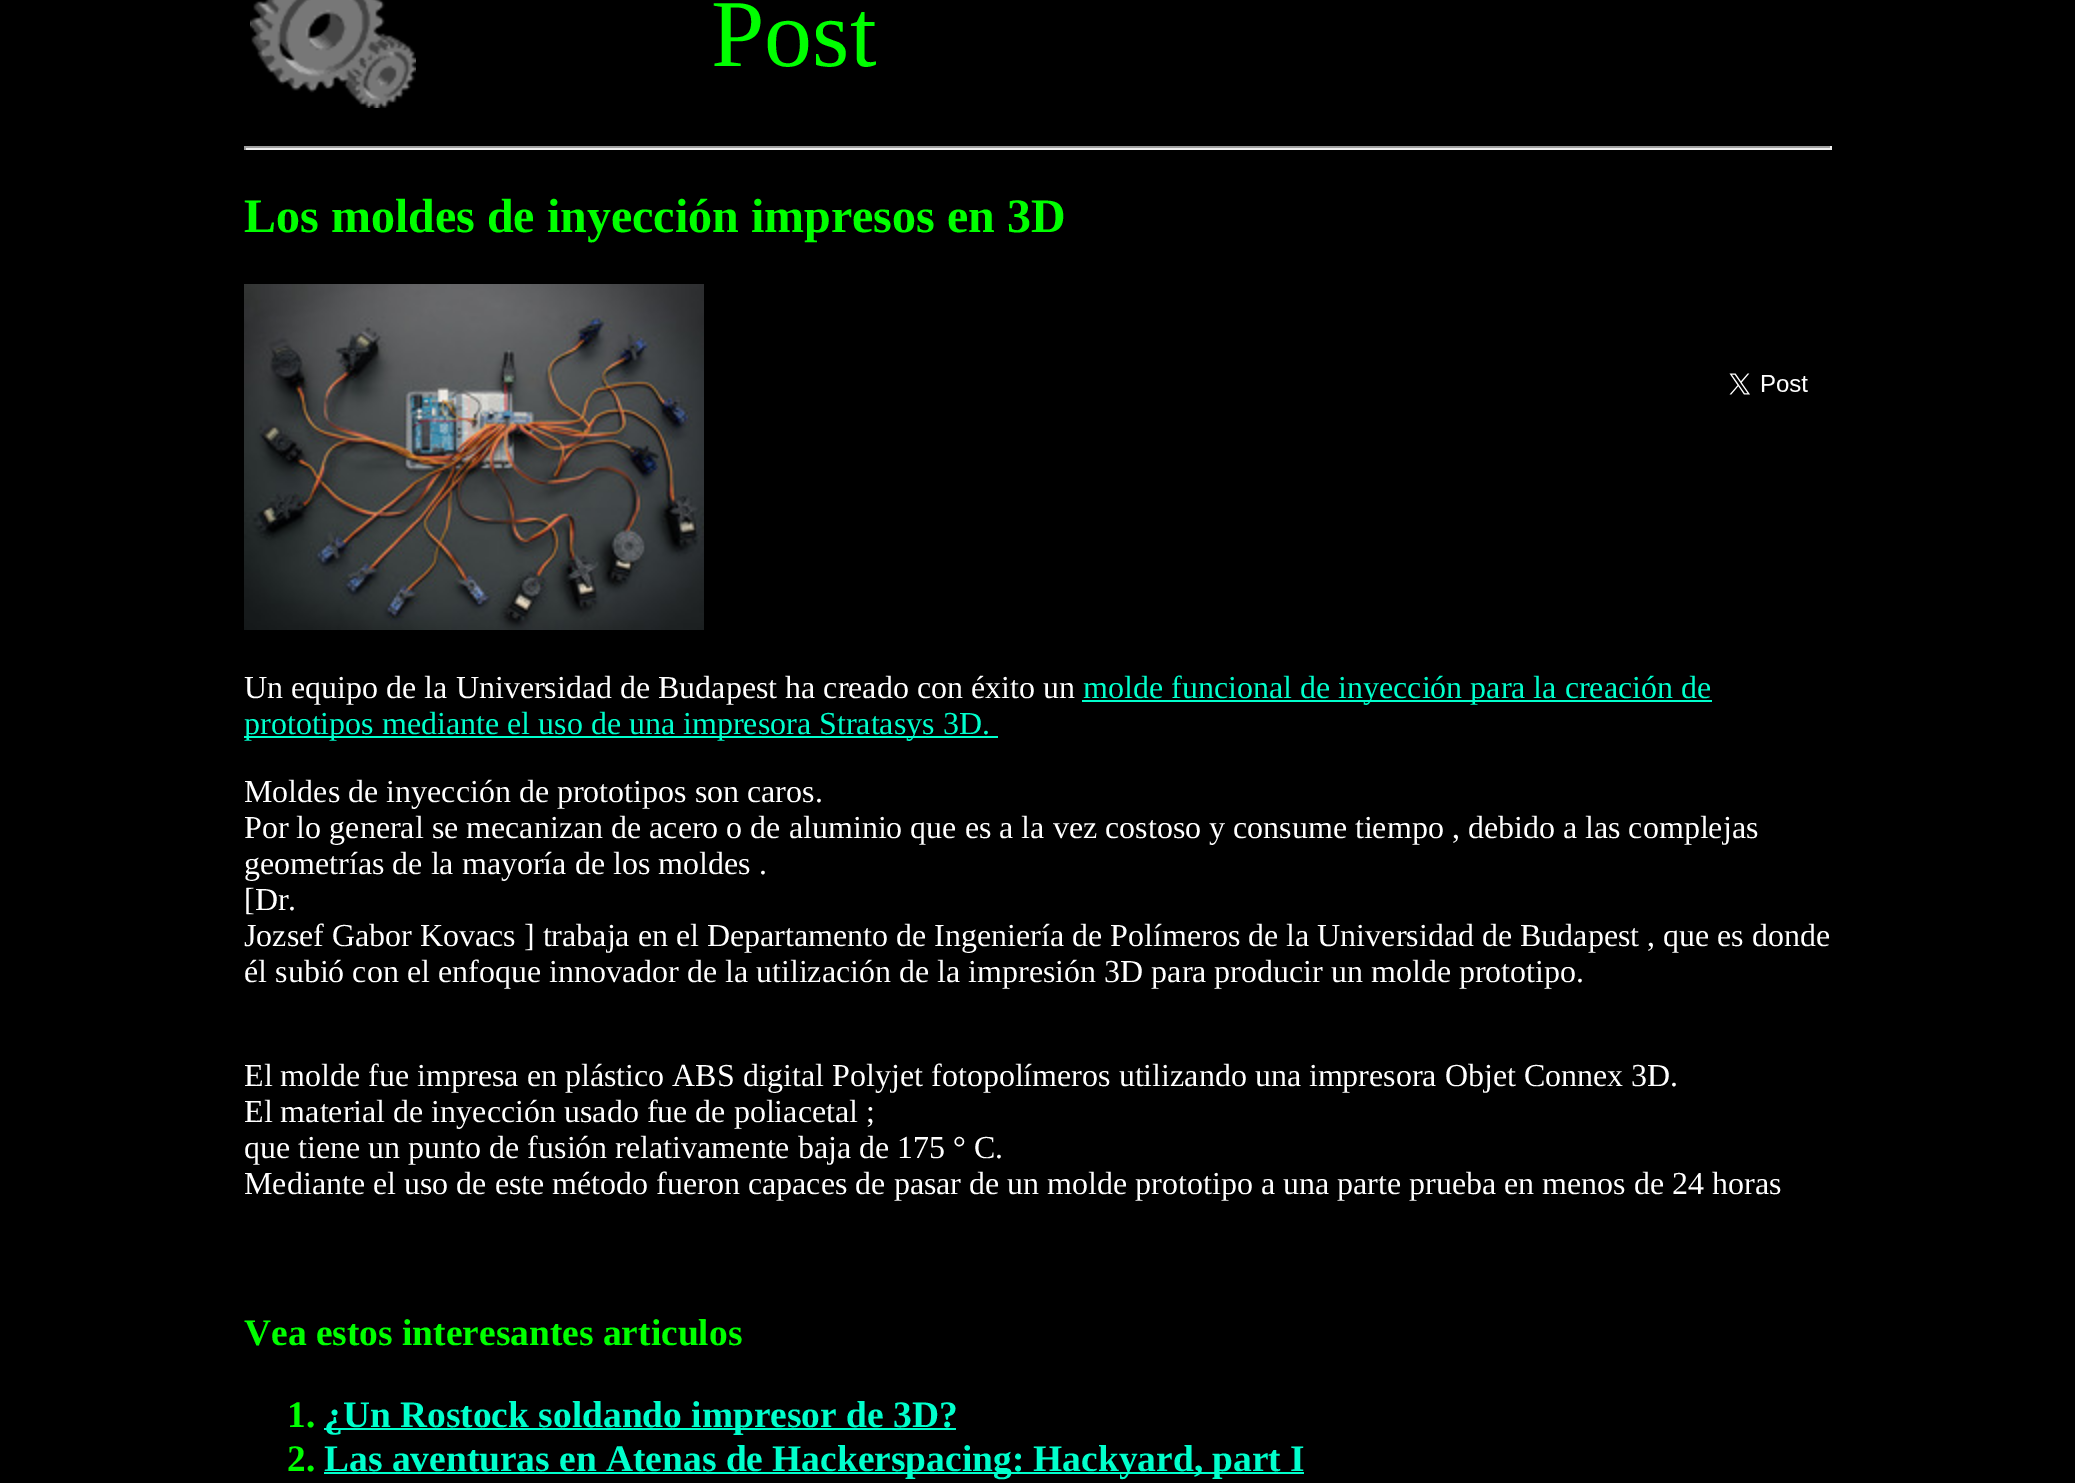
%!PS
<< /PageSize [2075 1483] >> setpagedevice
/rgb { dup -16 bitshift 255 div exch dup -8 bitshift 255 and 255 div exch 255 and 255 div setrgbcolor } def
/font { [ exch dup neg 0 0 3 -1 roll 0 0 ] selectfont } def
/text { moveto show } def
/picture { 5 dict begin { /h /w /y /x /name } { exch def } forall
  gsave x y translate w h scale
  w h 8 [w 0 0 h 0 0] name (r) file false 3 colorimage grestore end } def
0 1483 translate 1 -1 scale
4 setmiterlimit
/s1 { /LiberationSerif-Regular 96 font 16#00FF00 rgb } def
/s2 { /LiberationSerif-Bold 48 font 16#00FF00 rgb } def
/s3 { /LiberationSerif-Regular 32 font 16#FFFFFF rgb } def
/s4 { /LiberationSerif-Regular 32 font 16#00FFCC rgb } def
/s5 { /LiberationSerif-Bold 37.45 font 16#00FF00 rgb } def
/s6 { /LiberationSerif-Bold 37.45 font 16#00FFCC rgb } def
16#000000 rgb
0 0 2075 1483 rectfill
(pic1.raw) 250 0 166 108 picture
s1
(Post) 711 66 text
16#9F9F9F rgb
244 146 1588 2 rectfill
16#EEEEEE rgb
1830 146 2 4 rectfill
244 148 1588 2 rectfill
16#9F9F9F rgb
244 146 2 4 rectfill
s2
(Los moldes de inyección impresos en 3D) 244 232 text
(pic2.raw) 244 284 460 346 picture
(pic3.raw) 1729 373 79 22 picture
s3
(Un equipo de la Universidad de Budapest ha creado con éxito un) 244 698 text
16#00FFCC rgb
1082 700 630 2 rectfill
(molde funcional de inyección para la creación de) 1083 698 text
244 736 754 2 rectfill
(prototipos mediante el uso de una impresora Stratasys 3D.) 244 734 text
s3
(Moldes de inyección de prototipos son caros.) 244 802 text
(Por lo general se mecanizan de acero o de aluminio que es a la vez costoso y consume tiempo , debido a las complejas) 244 838 text
(geometrías de la mayoría de los moldes .) 244 874 text
([Dr.) 244 910 text
(Jozsef Gabor Kovacs ] trabaja en el Departamento de Ingeniería de Polímeros de la Universidad de Budapest , que es donde) 244 946 text
(él subió con el enfoque innovador de la utilización de la impresión 3D para producir un molde prototipo.) 244 982 text
(El molde fue impresa en plástico ABS digital Polyjet fotopolímeros utilizando una impresora Objet Connex 3D.) 244 1086 text
(El material de inyección usado fue de poliacetal ;) 244 1122 text
(que tiene un punto de fusión relativamente baja de 175 ° C.) 244 1158 text
(Mediante el uso de este método fueron capaces de pasar de un molde prototipo a una parte prueba en menos de 24 horas) 244 1194 text
s5
(Vea estos interesantes articulos) 244 1345 text
(1.) 287 1427 text
16#00FFCC rgb
324 1428 632 2 rectfill
(¿Un Rostock soldando impresor de 3D?) 324 1427 text
s5
(2.) 287 1471 text
16#00FFCC rgb
324 1472 980 2 rectfill
(Las aventuras en Atenas de Hackerspacing: Hackyard, part I) 324 1471 text
showpage
